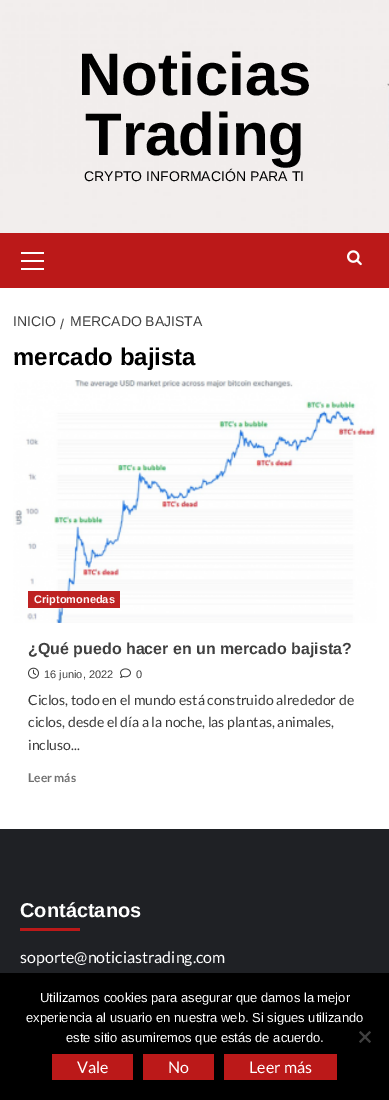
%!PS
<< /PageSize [389 1100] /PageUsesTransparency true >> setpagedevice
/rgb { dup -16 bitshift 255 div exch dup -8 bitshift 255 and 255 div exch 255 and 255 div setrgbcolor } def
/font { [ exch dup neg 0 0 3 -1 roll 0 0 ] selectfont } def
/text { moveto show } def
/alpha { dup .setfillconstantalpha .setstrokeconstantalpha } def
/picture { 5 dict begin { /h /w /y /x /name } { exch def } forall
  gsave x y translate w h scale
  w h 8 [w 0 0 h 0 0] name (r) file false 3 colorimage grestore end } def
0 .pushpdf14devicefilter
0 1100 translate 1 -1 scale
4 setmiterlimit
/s1 { /LiberationSans-Bold 60 font 16#000000 rgb } def
/s2 { /LiberationSans-Regular 14 font 16#000000 rgb } def
/s3 { /LiberationSans-Regular 14 font 16#404040 rgb } def
/s4 { /LiberationSans-Bold 24 font 16#000000 rgb } def
/s5 { /LiberationSans-Bold 11 font 16#FCF6F6 rgb } def
/s6 { /LiberationSans-Bold 16 font 16#404040 rgb } def
/s7 { /LiberationSans-Regular 11 font 16#404040 rgb } def
/s8 { /Lato-Regular 14 font 16#3A3A3A rgb } def
/s9 { /Lato-Bold 12 font 16#707070 rgb } def
/s10 { /LiberationSans-Bold 20 font 16#FFFFFF rgb } def
/s11 { /Lato-Regular 16 font 16#FFFFFF rgb } def
/s12 { /LiberationSans-Regular 13 font 16#FFFFFF rgb } def
16#FFFFFF rgb
0 0 389 1100 rectfill
(pic1.raw) 0 0 389 233 picture
s1
(Noticias) 78 95 text
(Trading) 85 155 text
s2
(CRYPTO INFORMACIÓN PARA TI) 84 181 text
16#BB1919 rgb
0 233 389 55 rectfill
16#FFFFFF rgb
21 260 23 2 rectfill
21 252 23 2 rectfill
21 268 23 2 rectfill
(pic2.raw) 347 250 15 16 picture
s3
(INICIO) 13 326 text
(/) 60 329 text
(MERCADO BAJISTA) 70 326 text
s4
(mercado bajista) 13 365 text
(pic3.raw) 13 380 364 243 picture
0.96 alpha
16#BB1919 rgb
28 591 92 17 rectfill
1 alpha
s5
(Criptomonedas) 34 603 text
s6
(¿Qué puedo hacer en un mercado bajista?) 28 654 text
(pic4.raw) 28 667 11 12 picture
s7
(16 junio, 2022) 44 678 text
(pic5.raw) 120 668 11 10 picture
(0) 136 678 text
s8
(Ciclos, todo en el mundo está construido alrededor de) 28 705 text
(ciclos, desde el día a la noche, las plantas, animales,) 28 727 text
(incluso...) 28 750 text
s9
(Leer más) 28 782 text
16#1F2125 rgb
0 829 389 144 rectfill
s10
(Contáctanos) 20 917 text
16#BB1919 rgb
20 928 60 3 rectfill
s11
(soporte@noticiastrading.com) 20 963 text
16#000000 rgb
0 973 389 127 rectfill
s12
(Utilizamos cookies para asegurar que damos la mejor) 40 1002 text
(experiencia al usuario en nuestra web. Si sigues utilizando) 26 1022 text
(este sitio asumiremos que estás de acuerdo.) 66 1042 text
16#404040 rgb
369.5 1031 moveto 371 1032.5 lineto 360.5 1043 lineto 359 1041.5 lineto closepath fill
359 1032.5 moveto 360.5 1031 lineto 371 1041.5 lineto 369.5 1043 lineto closepath fill
16#BB1919 rgb
52 1054 81 26 rectfill
s11
(Vale) 77 1073 text
16#BB1919 rgb
143 1054 71 26 rectfill
s11
(No) 168 1073 text
16#BB1919 rgb
224 1054 113 26 rectfill
s11
(Leer más) 249 1073 text
.poppdf14devicefilter showpage
